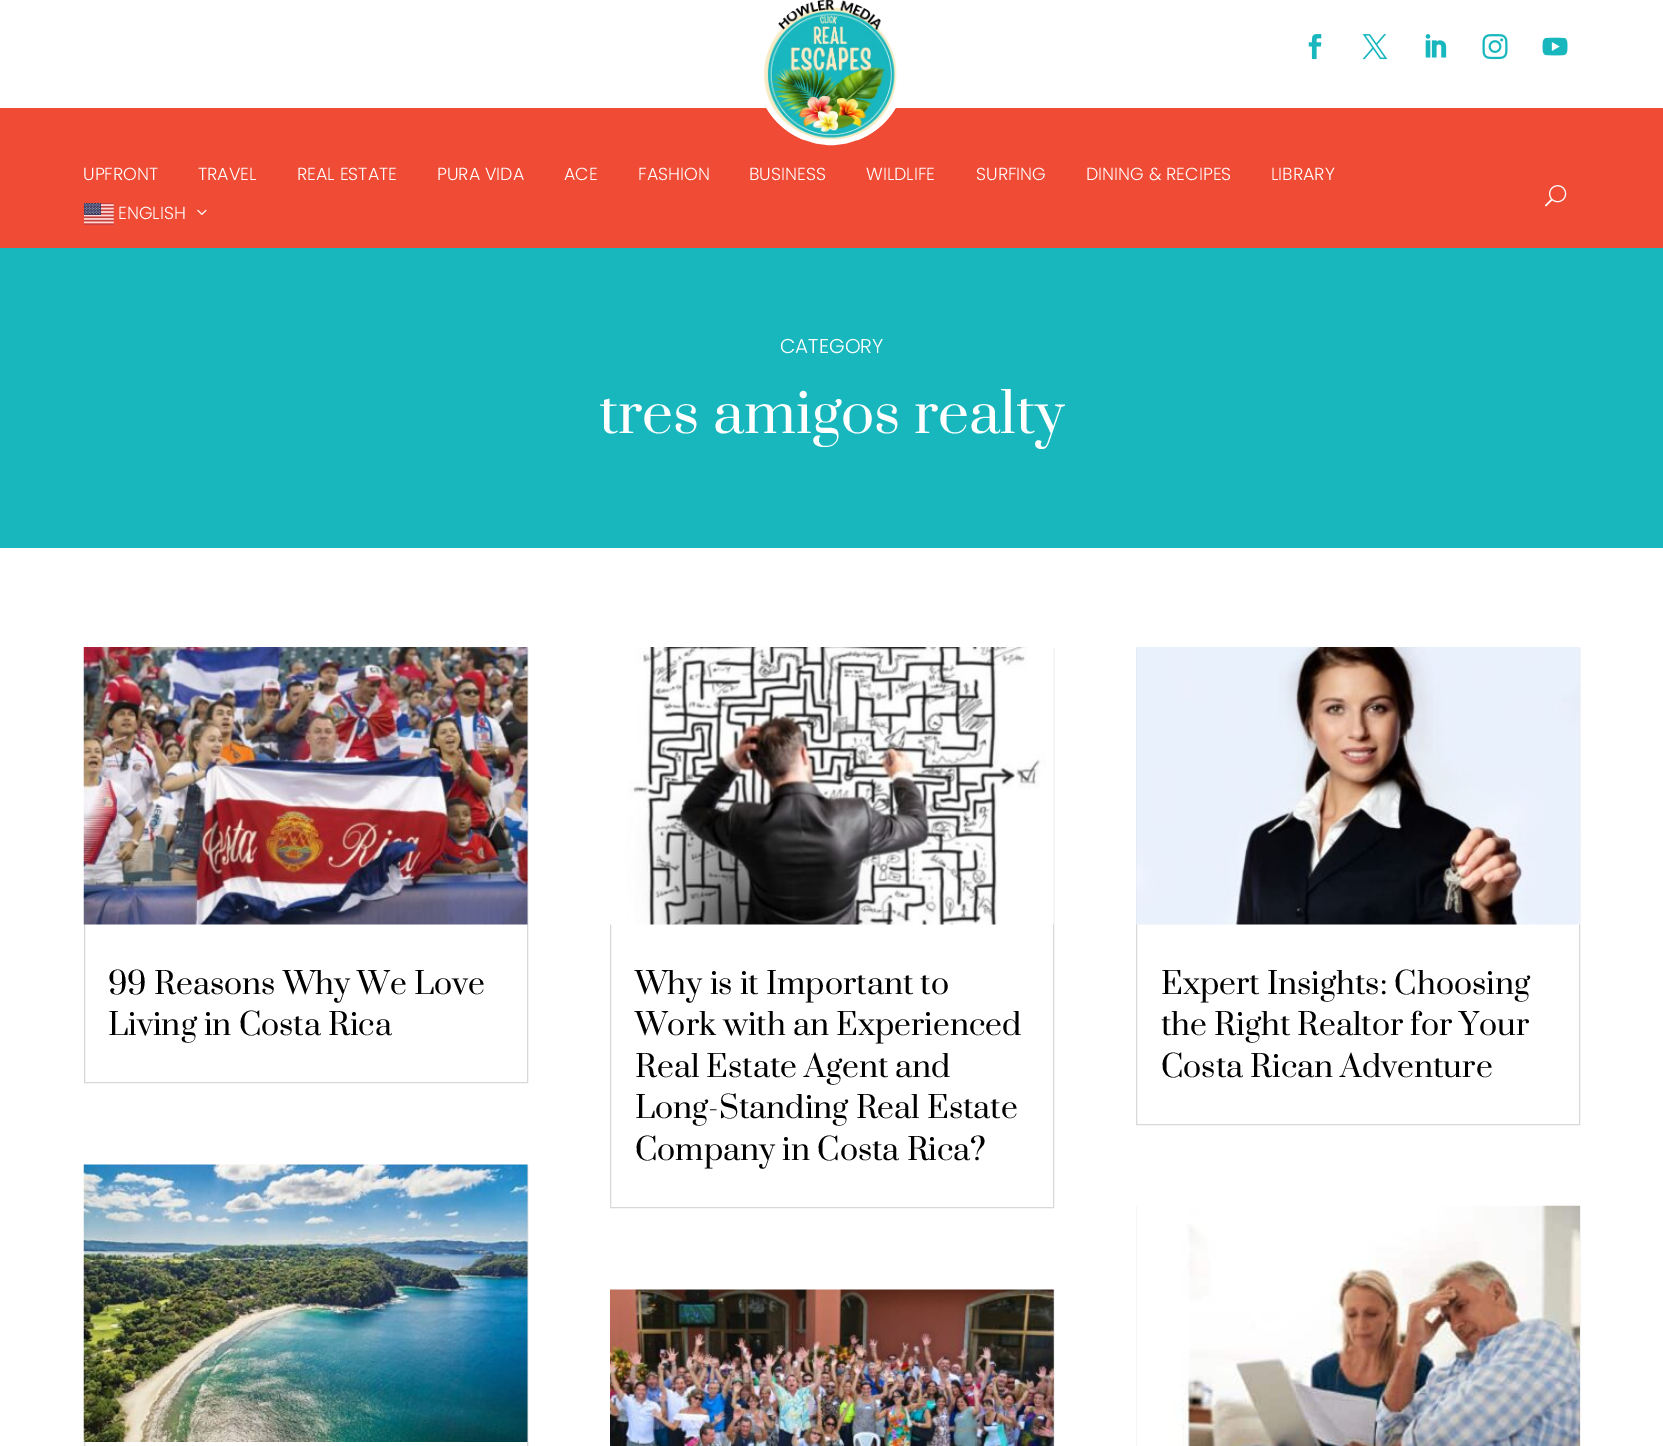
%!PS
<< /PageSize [1663 1446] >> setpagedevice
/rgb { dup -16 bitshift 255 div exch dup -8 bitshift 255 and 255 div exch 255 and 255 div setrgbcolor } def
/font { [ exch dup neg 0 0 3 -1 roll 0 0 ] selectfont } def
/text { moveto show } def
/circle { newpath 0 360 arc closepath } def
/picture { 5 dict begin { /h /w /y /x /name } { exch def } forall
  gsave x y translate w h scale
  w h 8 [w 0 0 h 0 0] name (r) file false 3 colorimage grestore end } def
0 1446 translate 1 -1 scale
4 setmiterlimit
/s1 { /Poppins-Light 17.5 font 16#FFFFFF rgb } def
/s2 { /Poppins-Light 20 font 16#FFFFFF rgb } def
/s3 { /Prata-Regular 55 font 16#FFFFFF rgb } def
/s4 { /Prata-Regular 30 font 16#000000 rgb } def
16#FFFFFF rgb
0 0 1663 1446 rectfill
16#EF4B35 rgb
0 108 1663 140 rectfill
16#FFFFFF rgb
831 70 72.5 circle gsave fill grestore
5 setlinewidth
stroke
(pic1.raw) 764 0 133 140 picture
(pic2.raw) 1308 34 14 26 picture
(pic3.raw) 1362 34 26 26 picture
(pic4.raw) 1425 34 22 24 picture
(pic5.raw) 1482 34 26 26 picture
(pic6.raw) 1542 37 26 19 picture
s1
(UPFRONT) 83 180 text
(TRAVEL) 198 180 text
(REAL ESTATE) 297 180 text
(PURA VIDA) 437 180 text
(ACE) 564 180 text
(FASHION) 638 180 text
(BUSINESS) 749 180 text
(WILDLIFE) 866 180 text
(SURFING) 976 180 text
(DINING & RECIPES) 1086 180 text
(LIBRARY) 1271 180 text
(pic7.raw) 84 203 30 22 picture
(ENGLISH) 118 219 text
(pic8.raw) 197 209 10 6 picture
(pic9.raw) 1545 185 22 22 picture
16#18B7BE rgb
0 248 1663 300 rectfill
s2
(CATEGORY) 780 353 text
s3
(tres amigos realty) 599 433 text
16#D8D8D8 rgb
1 setlinewidth
84.5 648.5 443 434 rectstroke
(pic10.raw) 83 647 445 278 picture
s4
(99 Reasons Why We Love) 108 994 text
(Living in Costa Rica) 108 1035 text
16#D8D8D8 rgb
84.5 1165.5 443 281 rectstroke
(pic11.raw) 83 1164 445 278 picture
610.5 648.5 443 559 rectstroke
(pic12.raw) 610 647 444 278 picture
s4
(Why is it Important to) 635 994 text
(Work with an Experienced) 635 1035 text
(Real Estate Agent and) 635 1077 text
(Long-Standing Real Estate) 635 1118 text
(Company in Costa Rica?) 635 1160 text
16#D8D8D8 rgb
610.5 1290.5 443 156 rectstroke
(pic13.raw) 610 1289 444 157 picture
1136.5 648.5 443 476 rectstroke
(pic14.raw) 1136 647 444 278 picture
s4
(Expert Insights: Choosing) 1161 994 text
(the Right Realtor for Your) 1161 1035 text
(Costa Rican Adventure) 1161 1077 text
16#D8D8D8 rgb
1136.5 1206.5 443 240 rectstroke
(pic15.raw) 1136 1205 444 241 picture
showpage
